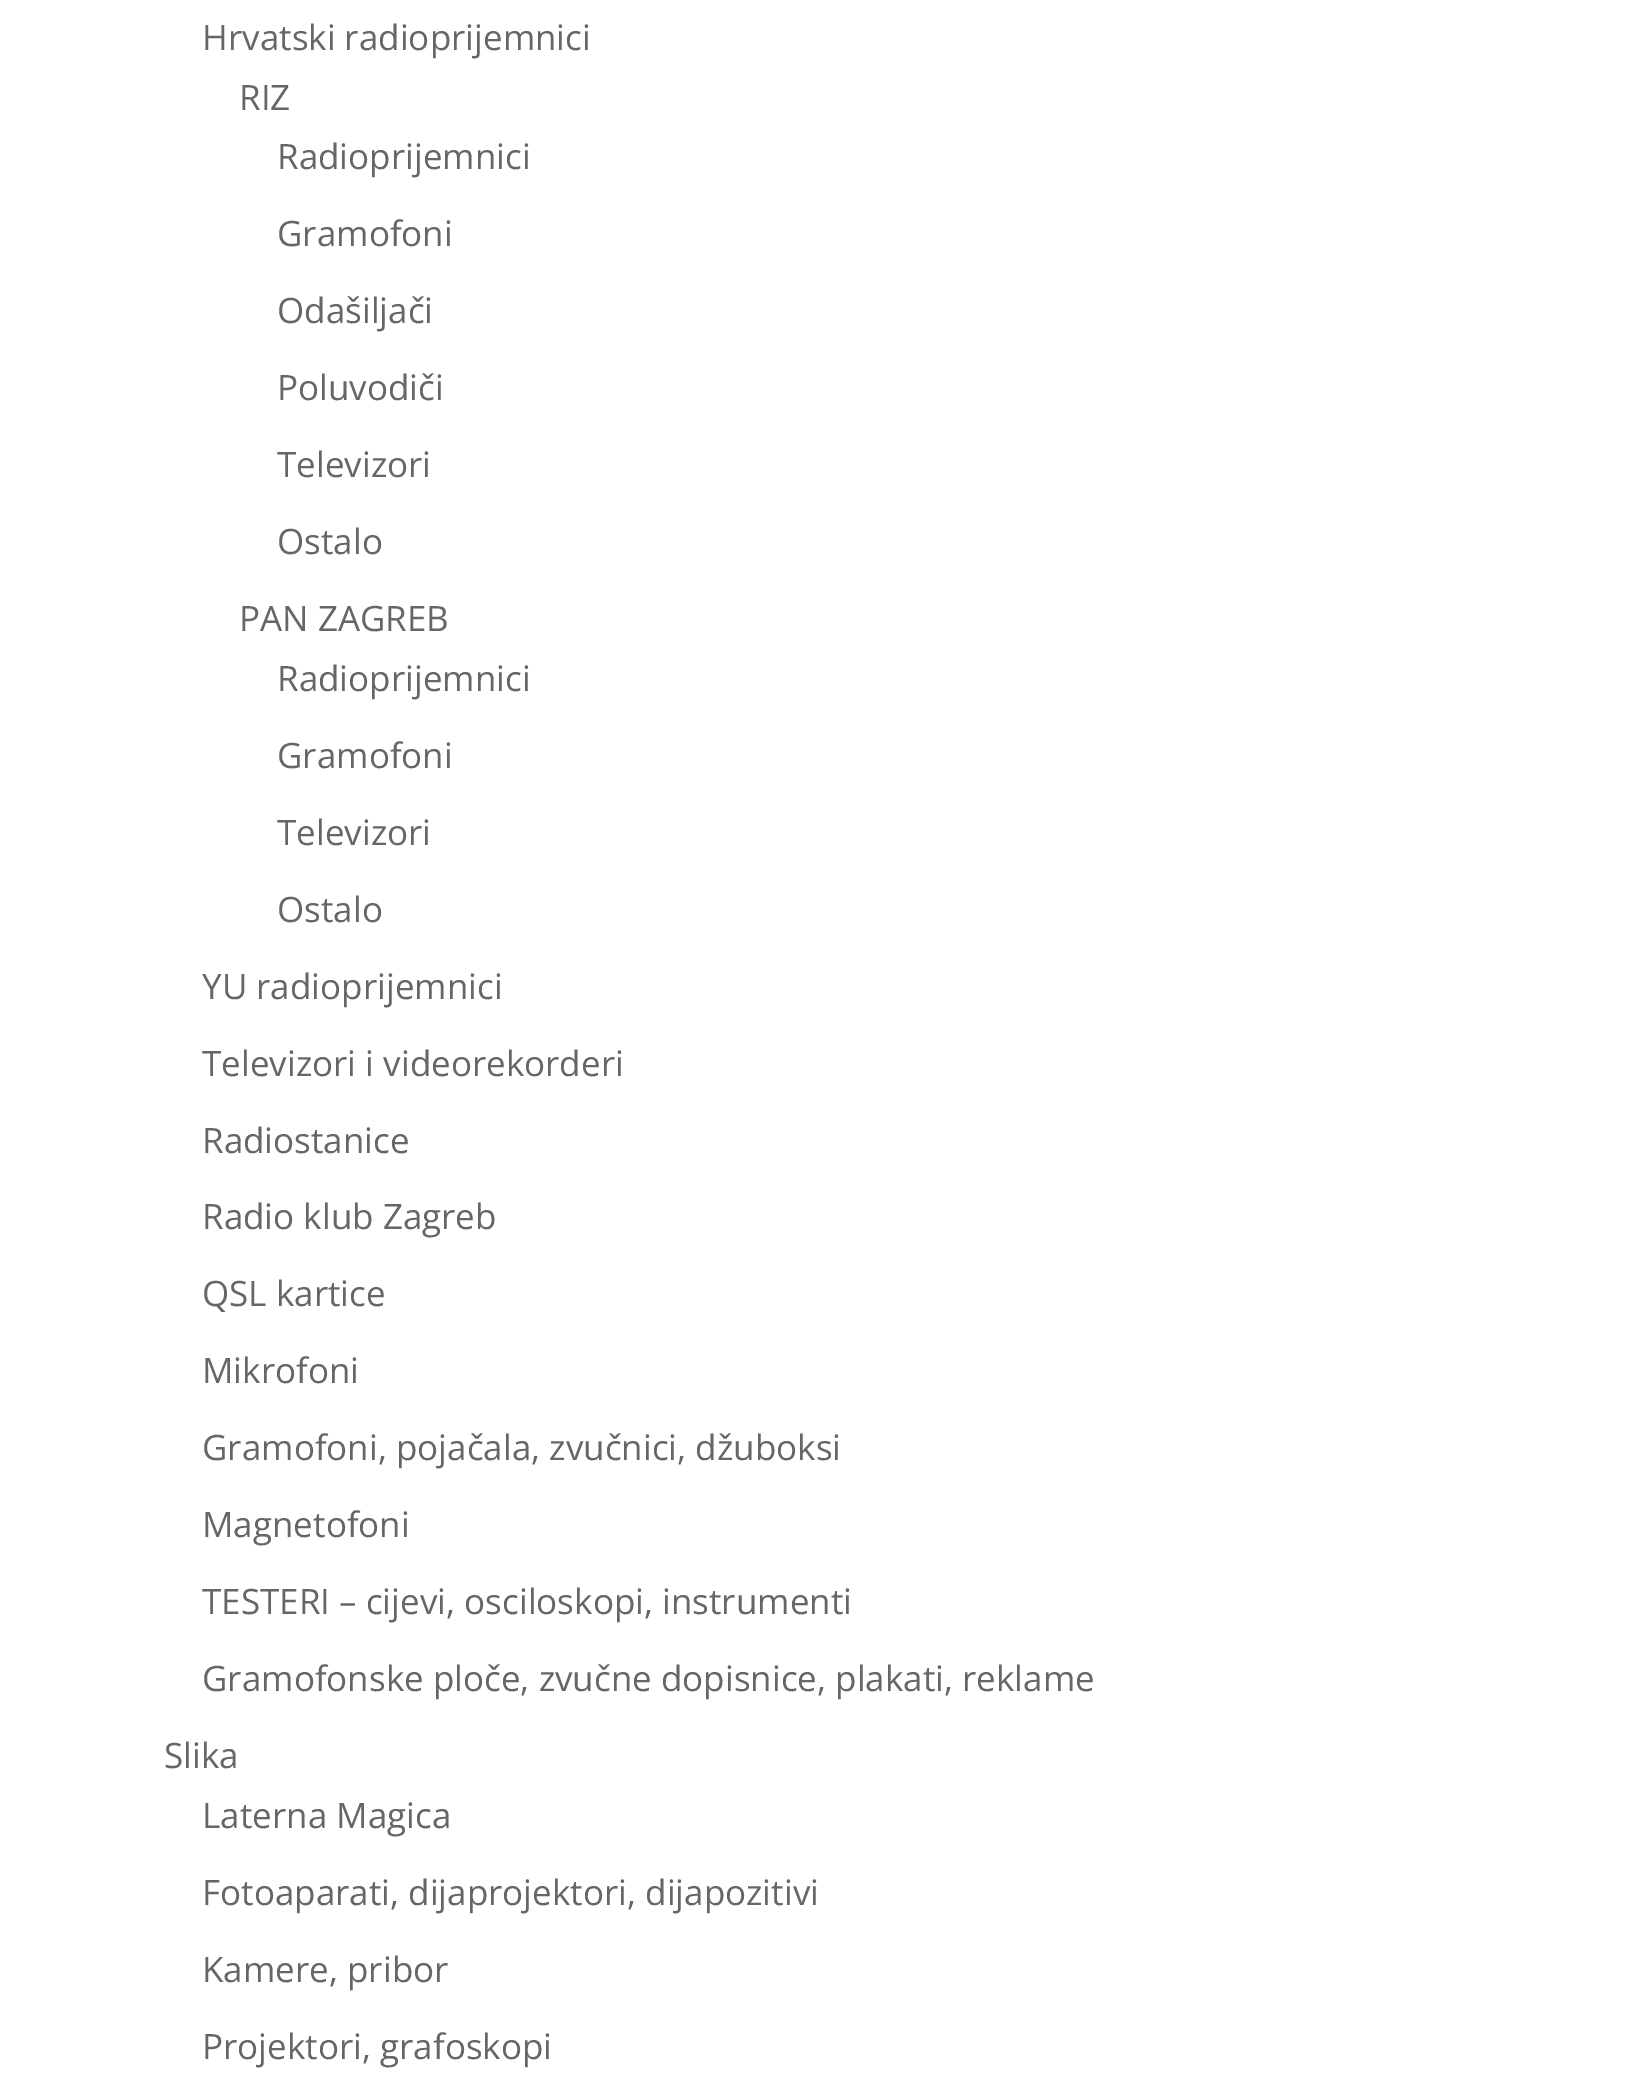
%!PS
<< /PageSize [1642 2095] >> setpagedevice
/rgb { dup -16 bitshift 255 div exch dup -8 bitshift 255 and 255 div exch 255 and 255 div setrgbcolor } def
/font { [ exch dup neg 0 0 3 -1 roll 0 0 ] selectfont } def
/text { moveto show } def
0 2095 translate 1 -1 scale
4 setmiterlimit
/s1 { /OpenSans-Regular 35 font 16#666666 rgb } def
16#FFFFFF rgb
0 0 1642 2095 rectfill
s1
(Hrvatski radioprijemnici) 202 50 text
(RIZ) 239 110 text
(Radioprijemnici) 277 169 text
(Gramofoni) 277 246 text
(Odašiljači) 277 323 text
(Poluvodiči) 277 400 text
(Televizori) 277 477 text
(Ostalo) 277 554 text
(PAN ZAGREB) 239 631 text
(Radioprijemnici) 277 691 text
(Gramofoni) 277 768 text
(Televizori) 277 845 text
(Ostalo) 277 922 text
(YU radioprijemnici) 202 999 text
(Televizori i videorekorderi) 202 1076 text
(Radiostanice) 202 1153 text
(Radio klub Zagreb) 202 1229 text
(QSL kartice) 202 1306 text
(Mikrofoni) 202 1383 text
(Gramofoni, pojačala, zvučnici, džuboksi) 202 1460 text
(Magnetofoni) 202 1537 text
(TESTERI – cijevi, osciloskopi, instrumenti) 202 1614 text
(Gramofonske ploče, zvučne dopisnice, plakati, reklame) 202 1691 text
(Slika) 164 1768 text
(Laterna Magica) 202 1828 text
(Fotoaparati, dijaprojektori, dijapozitivi) 202 1905 text
(Kamere, pribor) 202 1982 text
(Projektori, grafoskopi) 202 2059 text
showpage
